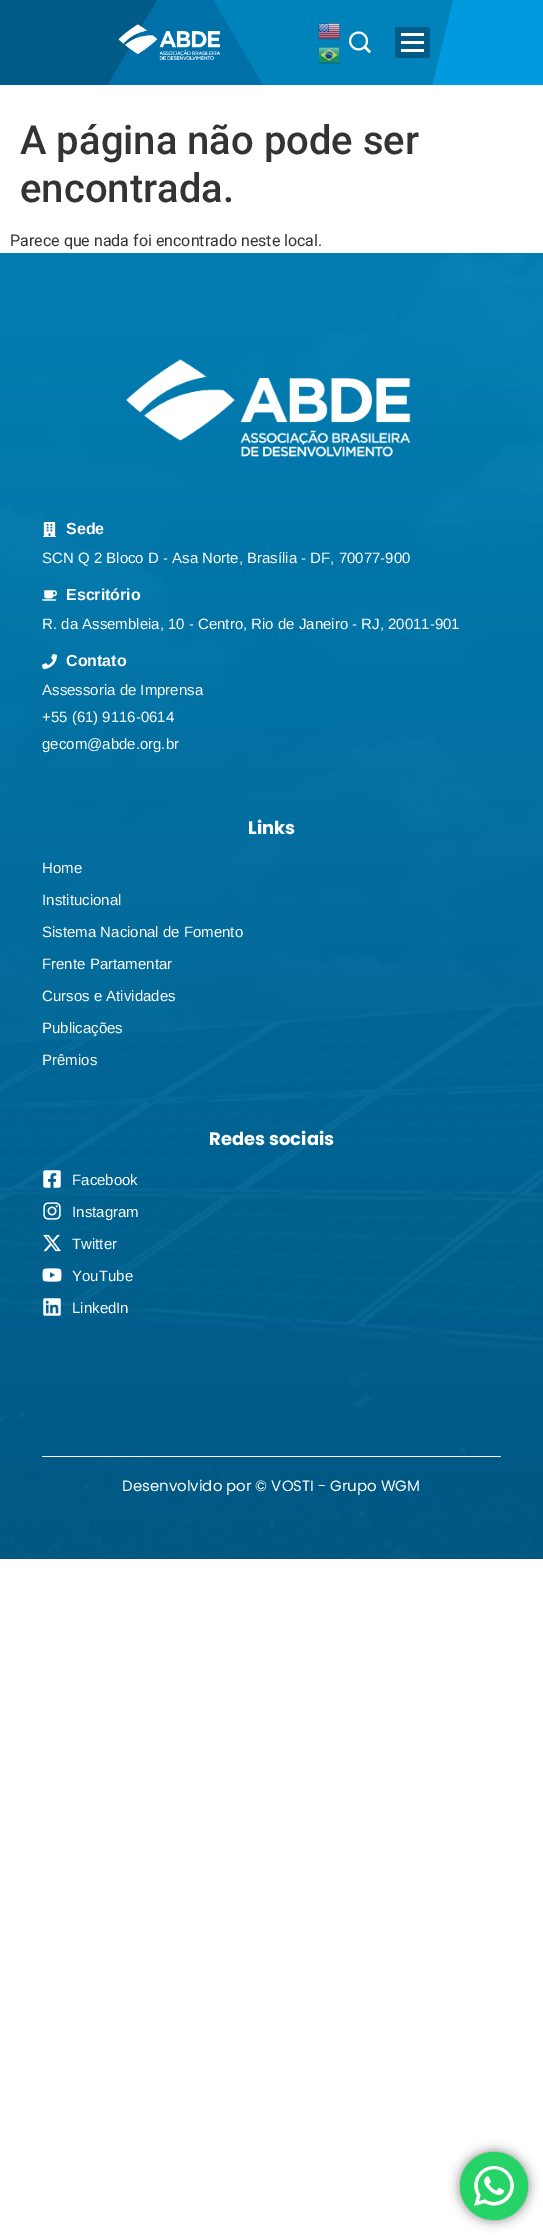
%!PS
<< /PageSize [543 2235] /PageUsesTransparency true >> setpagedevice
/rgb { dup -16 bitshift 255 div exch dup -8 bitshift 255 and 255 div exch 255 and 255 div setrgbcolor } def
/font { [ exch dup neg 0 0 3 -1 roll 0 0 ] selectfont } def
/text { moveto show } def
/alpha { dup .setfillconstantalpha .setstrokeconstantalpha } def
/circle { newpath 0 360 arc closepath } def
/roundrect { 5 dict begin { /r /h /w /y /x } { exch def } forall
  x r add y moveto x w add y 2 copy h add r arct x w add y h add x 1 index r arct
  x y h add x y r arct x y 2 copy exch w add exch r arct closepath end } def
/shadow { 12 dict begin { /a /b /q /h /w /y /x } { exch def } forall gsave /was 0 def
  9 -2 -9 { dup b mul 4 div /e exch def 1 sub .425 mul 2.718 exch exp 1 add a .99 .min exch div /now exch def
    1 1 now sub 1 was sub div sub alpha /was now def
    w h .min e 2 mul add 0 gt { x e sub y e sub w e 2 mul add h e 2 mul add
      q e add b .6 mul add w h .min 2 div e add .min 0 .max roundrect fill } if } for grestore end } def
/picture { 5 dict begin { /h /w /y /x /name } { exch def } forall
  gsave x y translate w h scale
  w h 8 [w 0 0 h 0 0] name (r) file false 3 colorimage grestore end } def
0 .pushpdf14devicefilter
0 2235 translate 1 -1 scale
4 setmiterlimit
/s1 { /Roboto-Medium 40 font 16#333333 rgb } def
/s2 { /Roboto-Regular 16 font 16#333333 rgb } def
/s3 { /LiberationSans-Bold 16 font 16#FFFFFF rgb } def
/s4 { /LiberationSans-Regular 15 font 16#FFFFFF rgb } def
/s5 { /Poppins-Bold 18 font 16#FFFFFF rgb } def
/s6 { /Poppins-Regular 15 font 16#FFFFFF rgb } def
16#FFFFFF rgb
0 0 543 2235 rectfill
16#005B89 rgb
0 0 158 85 rectfill
16#0083BB rgb
213 0 241 85 rectfill
gsave
0 0 543 85 rectclip
16#0071A8 rgb
185 -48 moveto 80 133 lineto 291 133 lineto closepath fill
16#009BDF rgb
421 133 moveto 465 -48 lineto 543 -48 lineto 543 133 lineto closepath fill
grestore
(pic1.raw) 118 24 103 36 picture
(pic2.raw) 318 23 22 17 picture
(pic3.raw) 318 47 22 17 picture
(pic4.raw) 349 31 22 23 picture
16#005B89 rgb
395 27 35 31 2 roundrect fill
16#FFFFFF rgb
401 33 23 3 rectfill
401 41 23 3 rectfill
401 49 23 3 rectfill
s1
(A página não pode ser) 20 154 text
(encontrada.) 20 202 text
s2
(Parece que nada foi encontrado neste local.) 10 246 text
(pic5.raw) 0 253 543 1306 picture
(pic6.raw) 126 359 285 98 picture
(pic7.raw) 42 522 15 15 picture
s3
(Sede) 66 534 text
s4
(SCN Q 2 Bloco D - Asa Norte, Brasília - DF, 70077-900) 42 563 text
(pic8.raw) 42 590 15 11 picture
s3
(Escritório) 66 600 text
s4
(R. da Assembleia, 10 - Centro, Rio de Janeiro - RJ, 20011-901) 42 629 text
(pic9.raw) 42 654 15 15 picture
s3
(Contato) 66 666 text
s4
(Assessoria de Imprensa) 42 695 text
(+55 \(61\) 9116-0614) 42 722 text
(gecom@abde.org.br) 42 749 text
s5
(Links) 248 834 text
s4
(Home) 42 873 text
(Institucional) 42 905 text
(Sistema Nacional de Fomento) 42 937 text
(Frente Partamentar) 42 969 text
(Cursos e Atividades) 42 1001 text
(Publicações) 42 1033 text
(Prêmios) 42 1065 text
s5
(Redes sociais) 209 1145 text
(pic10.raw) 43 1170 18 18 picture
s4
(Facebook) 72 1185 text
(pic11.raw) 43 1202 18 18 picture
(Instagram) 72 1217 text
(pic12.raw) 43 1234 18 18 picture
(Twitter) 72 1249 text
(pic13.raw) 42 1268 20 14 picture
(YouTube) 72 1281 text
(pic14.raw) 43 1298 18 18 picture
(LinkedIn) 72 1313 text
42 1456 459 1 rectfill
s6
(Desenvolvido por © VOSTI - Grupo WGM) 122 1491 text
16#000000 rgb
460 2152 68 68 34 5.5 0.5 shadow
16#25D366 rgb
494 2186 34 circle fill
(pic15.raw) 474 2166 40 40 picture
.poppdf14devicefilter showpage
